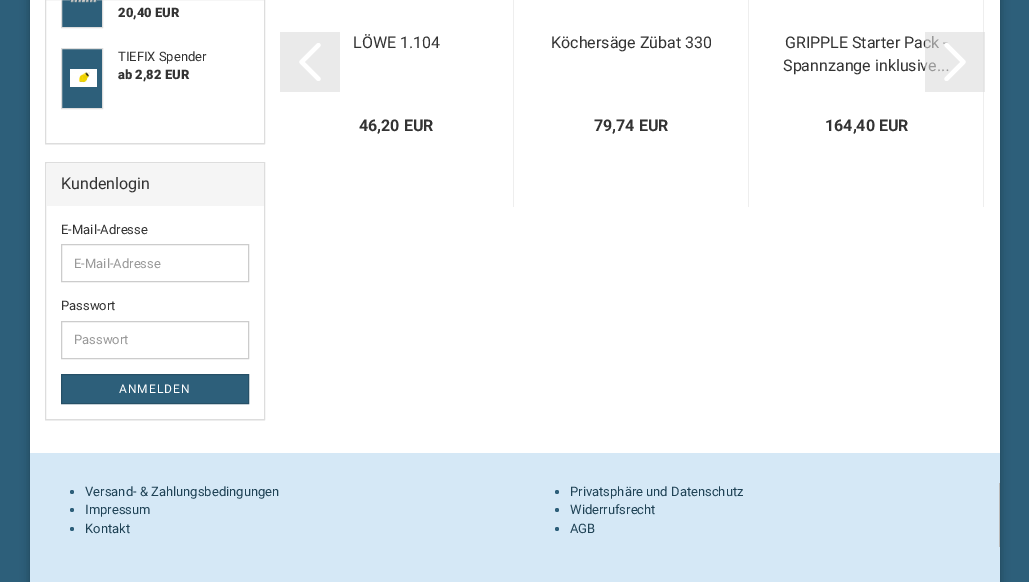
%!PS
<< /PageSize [1029 582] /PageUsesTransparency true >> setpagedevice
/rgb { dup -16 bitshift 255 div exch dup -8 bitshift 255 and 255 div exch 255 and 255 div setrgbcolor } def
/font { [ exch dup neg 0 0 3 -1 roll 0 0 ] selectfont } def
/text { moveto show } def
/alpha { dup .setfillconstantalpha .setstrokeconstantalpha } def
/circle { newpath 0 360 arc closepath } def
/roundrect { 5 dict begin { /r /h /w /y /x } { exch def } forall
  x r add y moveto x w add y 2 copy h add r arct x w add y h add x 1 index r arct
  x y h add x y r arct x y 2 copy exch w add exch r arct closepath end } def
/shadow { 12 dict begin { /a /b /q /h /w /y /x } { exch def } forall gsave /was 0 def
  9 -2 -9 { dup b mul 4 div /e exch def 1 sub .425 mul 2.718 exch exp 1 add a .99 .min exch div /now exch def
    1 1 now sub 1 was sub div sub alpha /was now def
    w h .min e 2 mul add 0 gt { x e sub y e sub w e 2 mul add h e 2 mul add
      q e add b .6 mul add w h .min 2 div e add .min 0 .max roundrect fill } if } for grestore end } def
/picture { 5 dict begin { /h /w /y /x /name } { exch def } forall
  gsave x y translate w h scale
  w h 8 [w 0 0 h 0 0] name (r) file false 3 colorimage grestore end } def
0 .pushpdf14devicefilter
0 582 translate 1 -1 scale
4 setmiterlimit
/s1 { /Roboto-Black 13 font 16#333333 rgb } def
/s2 { /Roboto-Regular 13 font 16#333333 rgb } def
/s3 { /Roboto-Regular 16 font 16#333333 rgb } def
/s4 { /Roboto-Regular 13 font 16#999999 rgb } def
/s5 { /Roboto-Bold 16 font 16#333333 rgb } def
/s6 { /Roboto-Regular 13 font 16#1F4255 rgb } def
16#2D5F7A rgb
0 0 1029 582 rectfill
16#000000 rgb
30 -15 970 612 0 5 0.3 shadow
16#FFFFFF rgb
30 0 970 453 rectfill
gsave
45 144 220 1 rectclip
16#000000 rgb
45 -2 220 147 0 0.5 0.05 shadow
grestore
16#DDDDDD rgb
45.5 -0.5 219 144 rectstroke
16#2D5F7A rgb
61.5 -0.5 moveto 102.5 -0.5 lineto 102.5 27.5 lineto 61.5 27.5 lineto closepath gsave fill grestore
16#DDDDDD rgb
stroke
(pic1.raw) 70 0 27 3 picture
s1
(20,40 EUR) 118 17 text
16#2D5F7A rgb
61.5 48.5 moveto 102.5 48.5 lineto 102.5 108.5 lineto 61.5 108.5 lineto closepath gsave fill grestore
16#DDDDDD rgb
stroke
(pic2.raw) 70 69 27 18 picture
s2
(TIEFIX Spender) 118 61 text
s1
(ab 2,82 EUR) 118 79 text
gsave
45 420 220 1 rectclip
16#000000 rgb
45 163 220 258 0 0.5 0.05 shadow
grestore
16#DDDDDD rgb
45.5 162.5 219 257 rectstroke
16#F5F5F5 rgb
46 164 218 42 rectfill
s3
(Kundenlogin) 61 189 text
s2
(E-Mail-Adresse) 61 234 text
16#CCCCCC rgb
61.5 244.5 187 37 rectstroke
s4
(E-Mail-Adresse) 74 268 text
s2
(Passwort) 61 310 text
16#CCCCCC rgb
61.5 321.5 187 37 rectstroke
s4
(Passwort) 74 344 text
16#2D5F7A rgb
61.5 374.5 moveto 248.5 374.5 lineto 248.5 403.5 lineto 61.5 403.5 lineto closepath gsave fill grestore
16#265067 rgb
stroke
/Roboto-Regular 12 font
16#FFFFFF rgb
119 393 moveto 1 0 (ANMELDEN) ashow
16#EAEAEA rgb
280 32 60 60 rectfill
(pic3.raw) 299 43 22 38 picture
16#EEEEEE rgb
513 0 1 207 rectfill
s3
(LÖWE 1.104) 353 48 text
s5
(46,20 EUR) 359 131 text
16#EEEEEE rgb
748 0 1 207 rectfill
s3
(Köchersäge Zübat 330) 551 48 text
s5
(79,74 EUR) 594 131 text
16#EEEEEE rgb
983 0 1 207 rectfill
s3
(GRIPPLE Starter Pack -) 785 48 text
(Spannzange inklusive...) 783 71 text
s5
(164,40 EUR) 825 131 text
0.6 alpha
16#DCDCDC rgb
925 32 60 60 rectfill
1 alpha
(pic4.raw) 944 42 22 39 picture
16#D5E8F6 rgb
30 453 970 129 rectfill
16#2D5F7A rgb
72 492 2 circle fill
s6
(Versand- & Zahlungsbedingungen) 85 496 text
16#2D5F7A rgb
72 510 2 circle fill
s6
(Impressum) 85 514 text
16#2D5F7A rgb
72 529 2 circle fill
s6
(Kontakt) 85 533 text
16#BBBBBB rgb
999 483 1 64 rectfill
16#2D5F7A rgb
557 492 2 circle fill
s6
(Privatsphäre und Datenschutz) 570 496 text
16#2D5F7A rgb
557 510 2 circle fill
s6
(Widerrufsrecht) 570 514 text
16#2D5F7A rgb
557 529 2 circle fill
s6
(AGB) 570 533 text
.poppdf14devicefilter showpage
